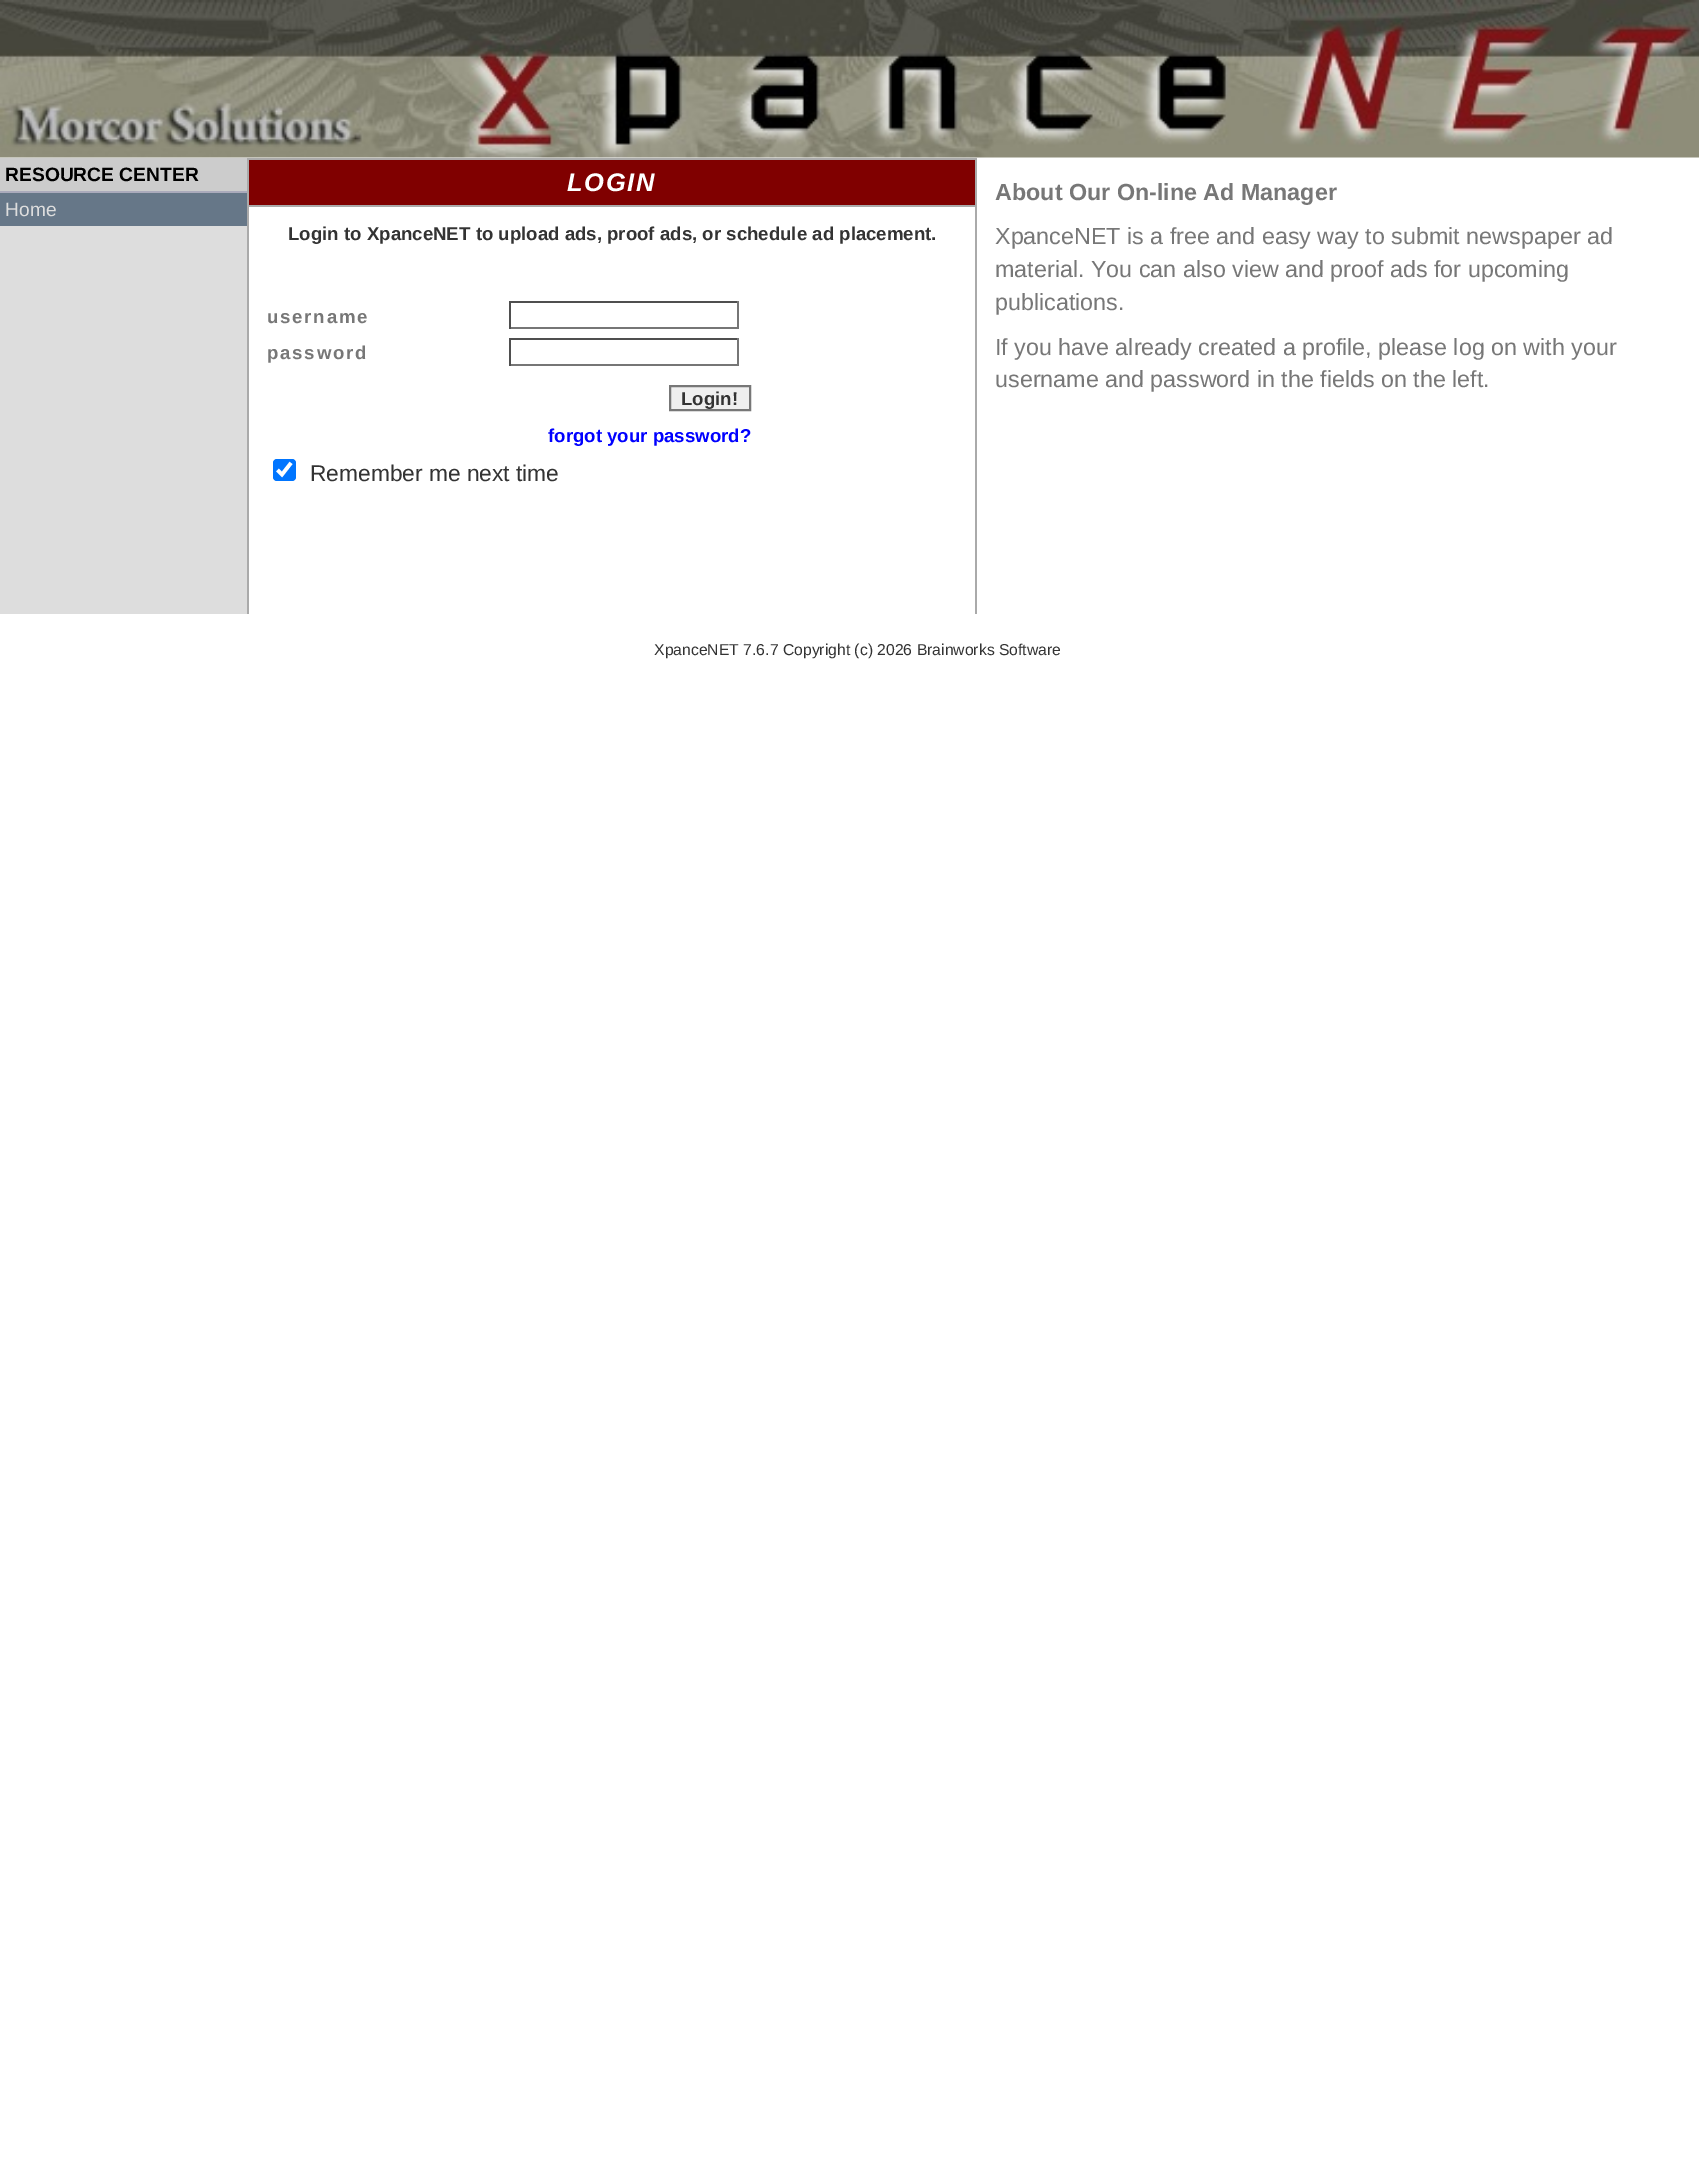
%!PS
<< /PageSize [1699 2184] >> setpagedevice
/rgb { dup -16 bitshift 255 div exch dup -8 bitshift 255 and 255 div exch 255 and 255 div setrgbcolor } def
/font { [ exch dup neg 0 0 3 -1 roll 0 0 ] selectfont } def
/text { moveto show } def
/roundrect { 5 dict begin { /r /h /w /y /x } { exch def } forall
  x r add y moveto x w add y 2 copy h add r arct x w add y h add x 1 index r arct
  x y h add x y r arct x y 2 copy exch w add exch r arct closepath end } def
/picture { 5 dict begin { /h /w /y /x /name } { exch def } forall
  gsave x y translate w h scale
  w h 8 [w 0 0 h 0 0] name (r) file false 3 colorimage grestore end } def
0 2184 translate 1 -1 scale
4 setmiterlimit
/s1 { /LiberationSans-Bold 19.25 font 16#000000 rgb } def
/s2 { /LiberationSans-Regular 19.25 font 16#DDDDDD rgb } def
/s3 { /LiberationSans-Bold 18.65 font 16#333333 rgb } def
/s4 { /LiberationSans-Bold 18.65 font 16#0000FF rgb } def
/s5 { /LiberationSans-Regular 22.75 font 16#333333 rgb } def
/s6 { /LiberationSans-Bold 23.3 font 16#777777 rgb } def
/s7 { /LiberationSans-Regular 23.3 font 16#777777 rgb } def
/s8 { /LiberationSans-Regular 15.75 font 16#333333 rgb } def
16#FFFFFF rgb
0 0 1699 2184 rectfill
(pic1.raw) 0 0 1699 158 picture
16#DDDDDD rgb
0 226 247 388 rectfill
16#CCCCCC rgb
0 158 247 33 rectfill
s1
(RESOURCE CENTER) 5 181 text
16#667788 rgb
0 193 247 33 rectfill
16#AAAABB rgb
0 191 247 2 rectfill
s2
(Home) 5 216 text
16#AAAAAA rgb
247 158 2 456 rectfill
16#800000 rgb
249 160 726 45 rectfill
16#AAAAAA rgb
249 158 726 2 rectfill
249 205 726 2 rectfill
/LiberationSans-BoldItalic 25.5 font
16#FFFFFF rgb
567 191 moveto 1.75 0 (LOGIN) ashow
s3
(Login to XpanceNET to upload ads, proof ads, or schedule ad placement.) 288 240 text
16#777777 rgb
267 323 moveto 1.75 0 (username) ashow
16#4F4F4F rgb
509 301 230 2 rectfill
16#767676 rgb
737 301 2 28 rectfill
509 327 230 2 rectfill
16#4F4F4F rgb
509 301 2 28 rectfill
16#777777 rgb
267 359 moveto 1.75 0 (password) ashow
16#4F4F4F rgb
509 338 230 2 rectfill
16#767676 rgb
737 338 2 28 rectfill
509 364 230 2 rectfill
16#4F4F4F rgb
509 338 2 28 rectfill
16#EFEFEF rgb
670 386 moveto 750 386 lineto 750 410 lineto 670 410 lineto closepath gsave fill grestore
16#777777 rgb
2 setlinewidth
stroke
s3
(Login!) 681 405 text
s4
(forgot your password?) 548 442 text
16#0075FF rgb
273 459 23 22 4 roundrect fill
16#FFFFFF rgb
3.6 setlinewidth
277.5 470 moveto 282 474.5 lineto 291 463 lineto stroke
s5
(Remember me next time) 310 481 text
16#AAAAAA rgb
975 158 2 456 rectfill
s6
(About Our On-line Ad Manager) 995 200 text
s7
(XpanceNET is a free and easy way to submit newspaper ad) 995 244 text
(material. You can also view and proof ads for upcoming) 995 277 text
(publications.) 995 310 text
(If you have already created a profile, please log on with your) 995 355 text
(username and password in the fields on the left.) 995 387 text
s8
(XpanceNET 7.6.7 Copyright \(c\) 2026 Brainworks Software) 654 655 text
showpage
